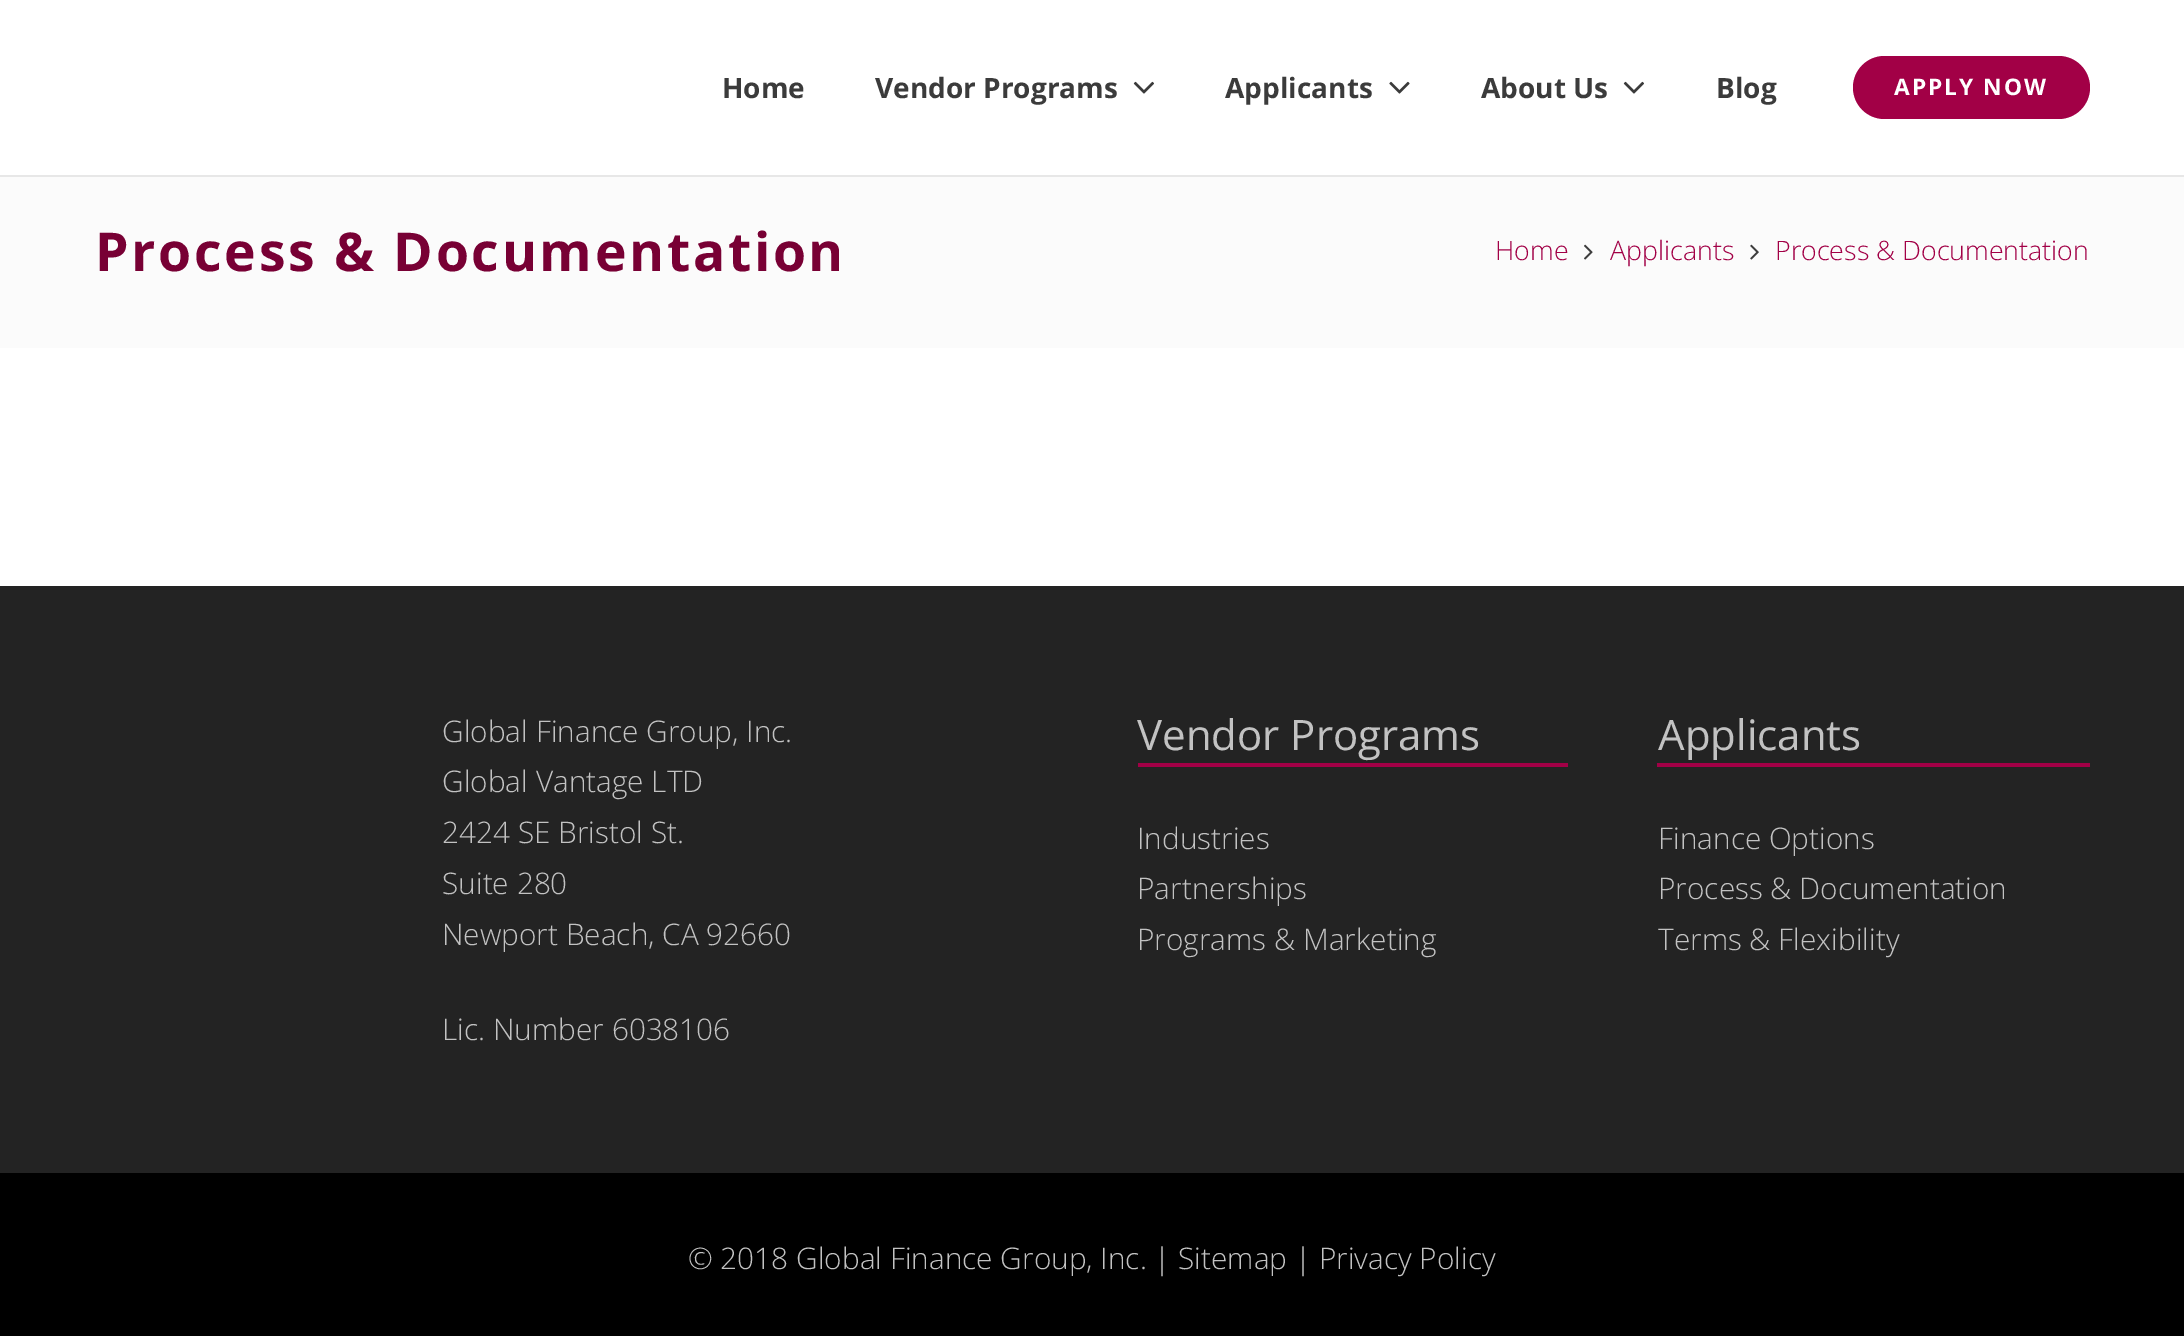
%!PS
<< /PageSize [2184 1336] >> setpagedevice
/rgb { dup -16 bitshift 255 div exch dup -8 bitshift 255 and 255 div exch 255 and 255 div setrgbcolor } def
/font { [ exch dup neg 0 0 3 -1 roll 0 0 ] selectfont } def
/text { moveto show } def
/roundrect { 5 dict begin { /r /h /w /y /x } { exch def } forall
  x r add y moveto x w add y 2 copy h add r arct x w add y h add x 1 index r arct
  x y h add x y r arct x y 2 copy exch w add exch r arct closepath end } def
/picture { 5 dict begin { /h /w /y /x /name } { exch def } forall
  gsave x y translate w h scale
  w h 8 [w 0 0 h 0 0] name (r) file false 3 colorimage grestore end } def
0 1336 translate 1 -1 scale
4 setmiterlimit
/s1 { /OpenSans-Bold 28 font 16#3B3B3B rgb } def
/s2 { /OpenSans-Light 26.75 font 16#A20046 rgb } def
/s3 { /OpenSans-Light 29.75 font 16#C2C2C2 rgb } def
/s4 { /OpenSans-Regular 42 font 16#C2C2C2 rgb } def
16#FFFFFF rgb
0 0 2184 1336 rectfill
16#E7E7E7 rgb
0 175 2184 2 rectfill
s1
(Home) 722 98 text
(Vendor Programs) 875 98 text
(pic1.raw) 1133 81 21 13 picture
(Applicants) 1225 98 text
(pic2.raw) 1389 81 21 13 picture
(About Us) 1481 98 text
(pic1.raw) 1623 81 21 13 picture
(Blog) 1716 98 text
16#A20046 rgb
1853 56 237 63 31.5 roundrect fill
/OpenSans-Bold 22.75 font
16#FFFFFF rgb
1894 95 moveto 2 0 (APPLY NOW) ashow
16#FBFBFB rgb
0 177 2184 171 rectfill
/OpenSans-Bold 53.5 font
16#780034 rgb
95 271 moveto 2.7 0 (Process & Documentation) ashow
s2
(Home) 1495 260 text
(pic3.raw) 1584 244 9 16 picture
(Applicants) 1610 260 text
(pic4.raw) 1750 244 9 16 picture
(Process & Documentation) 1775 260 text
16#232323 rgb
0 586 2184 587 rectfill
s3
(Global Finance Group, Inc.) 442 742 text
(Global Vantage LTD) 442 792 text
(2424 SE Bristol St.) 442 843 text
(Suite 280) 442 894 text
(Newport Beach, CA 92660) 442 945 text
(Lic. Number 6038106) 442 1040 text
16#A20046 rgb
1138 763 430 4 rectfill
s4
(Vendor Programs) 1137 750 text
s3
(Industries) 1137 849 text
(Partnerships) 1137 899 text
(Programs & Marketing) 1137 950 text
16#A20046 rgb
1657 763 433 4 rectfill
s4
(Applicants) 1658 750 text
s3
(Finance Options) 1658 849 text
(Process & Documentation) 1658 899 text
(Terms & Flexibility) 1658 950 text
16#000000 rgb
0 1173 2184 163 rectfill
s3
(© 2018 Global Finance Group, Inc. | Sitemap | Privacy Policy) 688 1269 text
showpage
